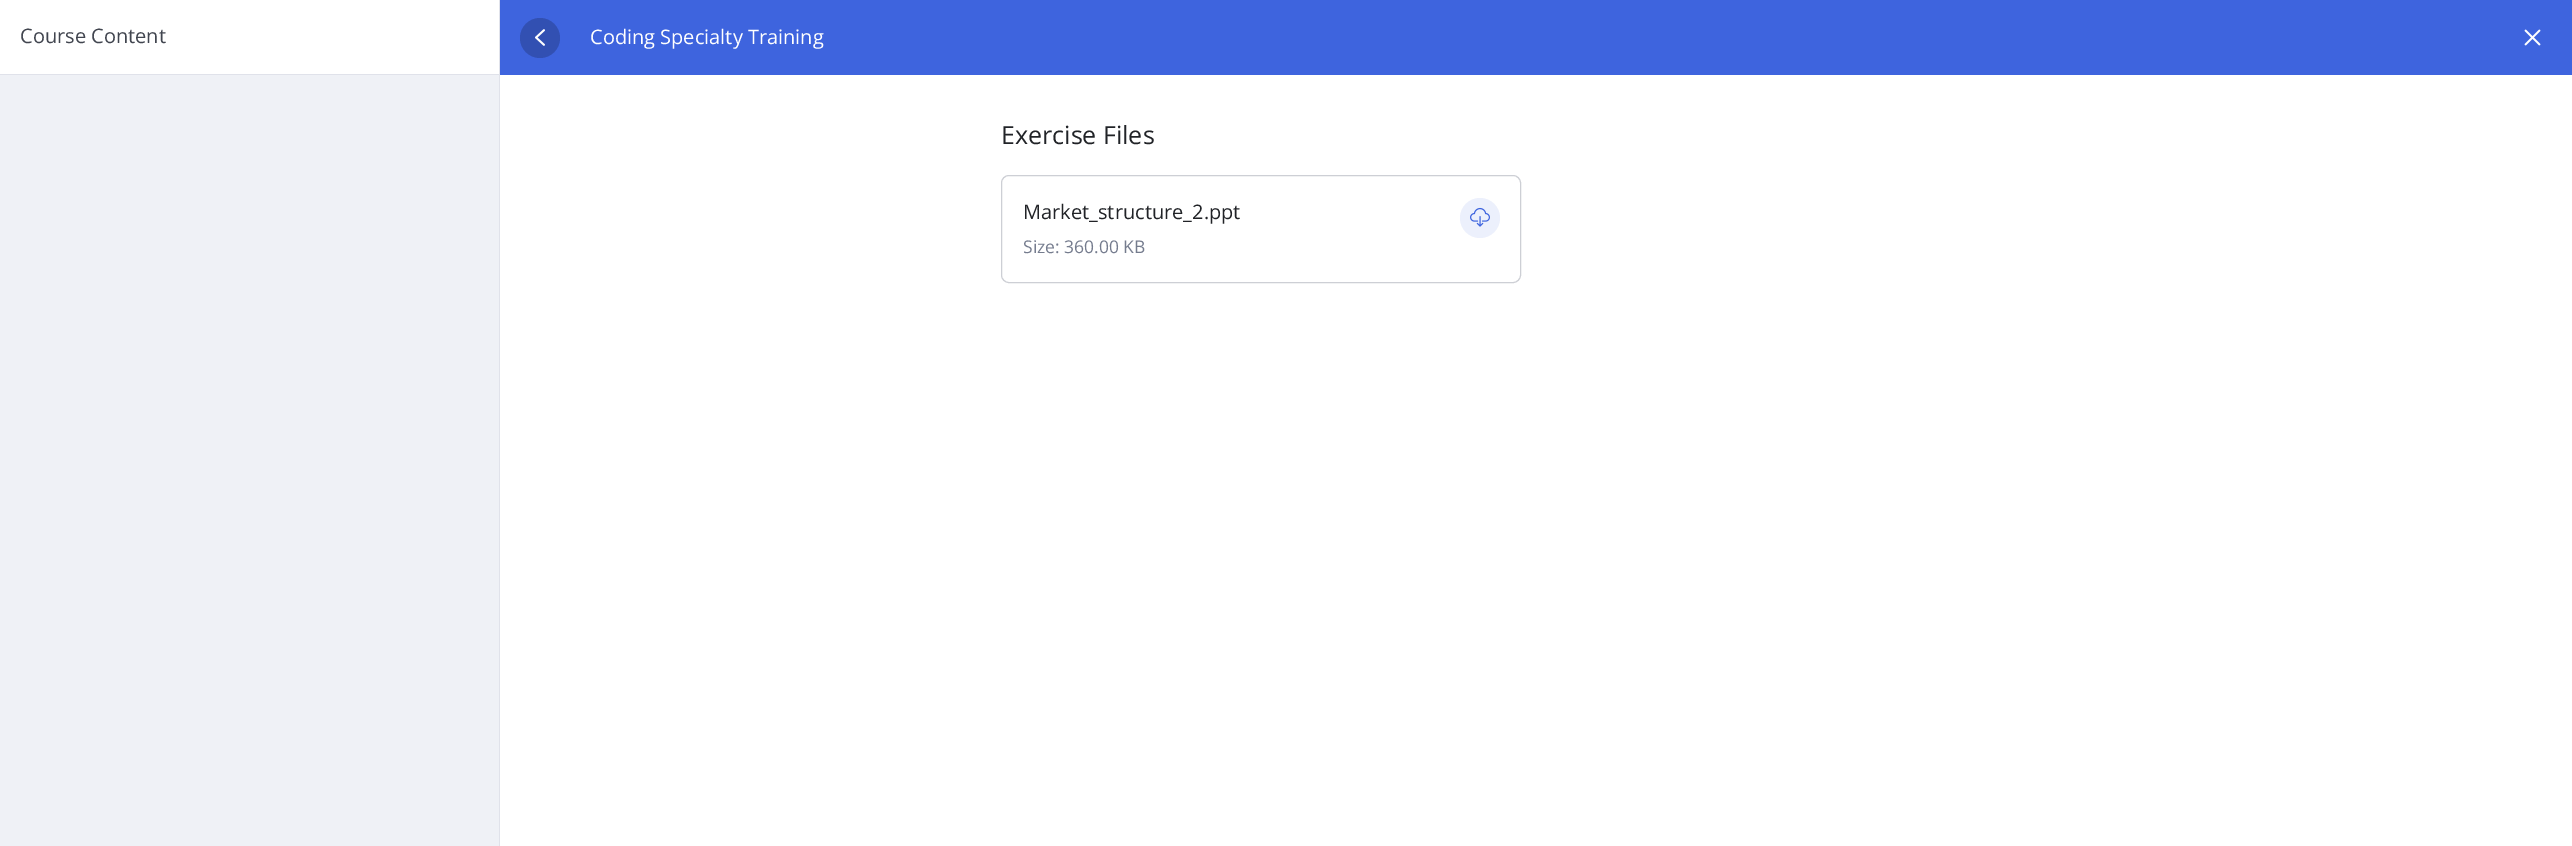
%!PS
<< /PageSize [2572 846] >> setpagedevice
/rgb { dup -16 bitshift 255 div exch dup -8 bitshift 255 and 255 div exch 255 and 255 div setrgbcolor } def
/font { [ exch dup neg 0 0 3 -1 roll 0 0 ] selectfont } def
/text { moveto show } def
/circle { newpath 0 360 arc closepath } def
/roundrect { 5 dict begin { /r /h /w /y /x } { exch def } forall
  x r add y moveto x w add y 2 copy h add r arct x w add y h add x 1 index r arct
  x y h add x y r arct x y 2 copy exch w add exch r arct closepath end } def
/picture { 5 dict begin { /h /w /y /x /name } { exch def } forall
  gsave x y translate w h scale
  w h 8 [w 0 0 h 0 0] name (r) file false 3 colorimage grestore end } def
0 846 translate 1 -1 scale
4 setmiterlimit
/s1 { /OpenSans-Regular 20 font 16#41454F rgb } def
/s2 { /OpenSans-Regular 20 font 16#FFFFFF rgb } def
/s3 { /OpenSans-Regular 25 font 16#212327 rgb } def
/s4 { /OpenSans-Regular 20 font 16#212327 rgb } def
/s5 { /OpenSans-Regular 17.5 font 16#757C8E rgb } def
16#FFFFFF rgb
0 0 2572 846 rectfill
16#EFF1F6 rgb
0 75 499 771 rectfill
16#E0E2EA rgb
499 0 1 846 rectfill
0 74 499 1 rectfill
s1
(Course Content) 20 43 text
16#3E64DE rgb
500 0 2072 75 rectfill
16#3250B2 rgb
540 38 20 circle fill
(pic1.raw) 535 29 10 17 picture
s2
(Coding Specialty Training) 590 44 text
(pic2.raw) 2524 29 17 17 picture
s3
(Exercise Files) 1001 144 text
16#CDCFD5 rgb
1001.5 175.5 519 107 7.5 roundrect stroke
s4
(Market_structure_2.ppt) 1023 219 text
s5
(Size: 360.00 KB) 1023 253 text
16#ECF0FC rgb
1480 218 20 circle fill
(pic3.raw) 1470 207 20 20 picture
showpage
